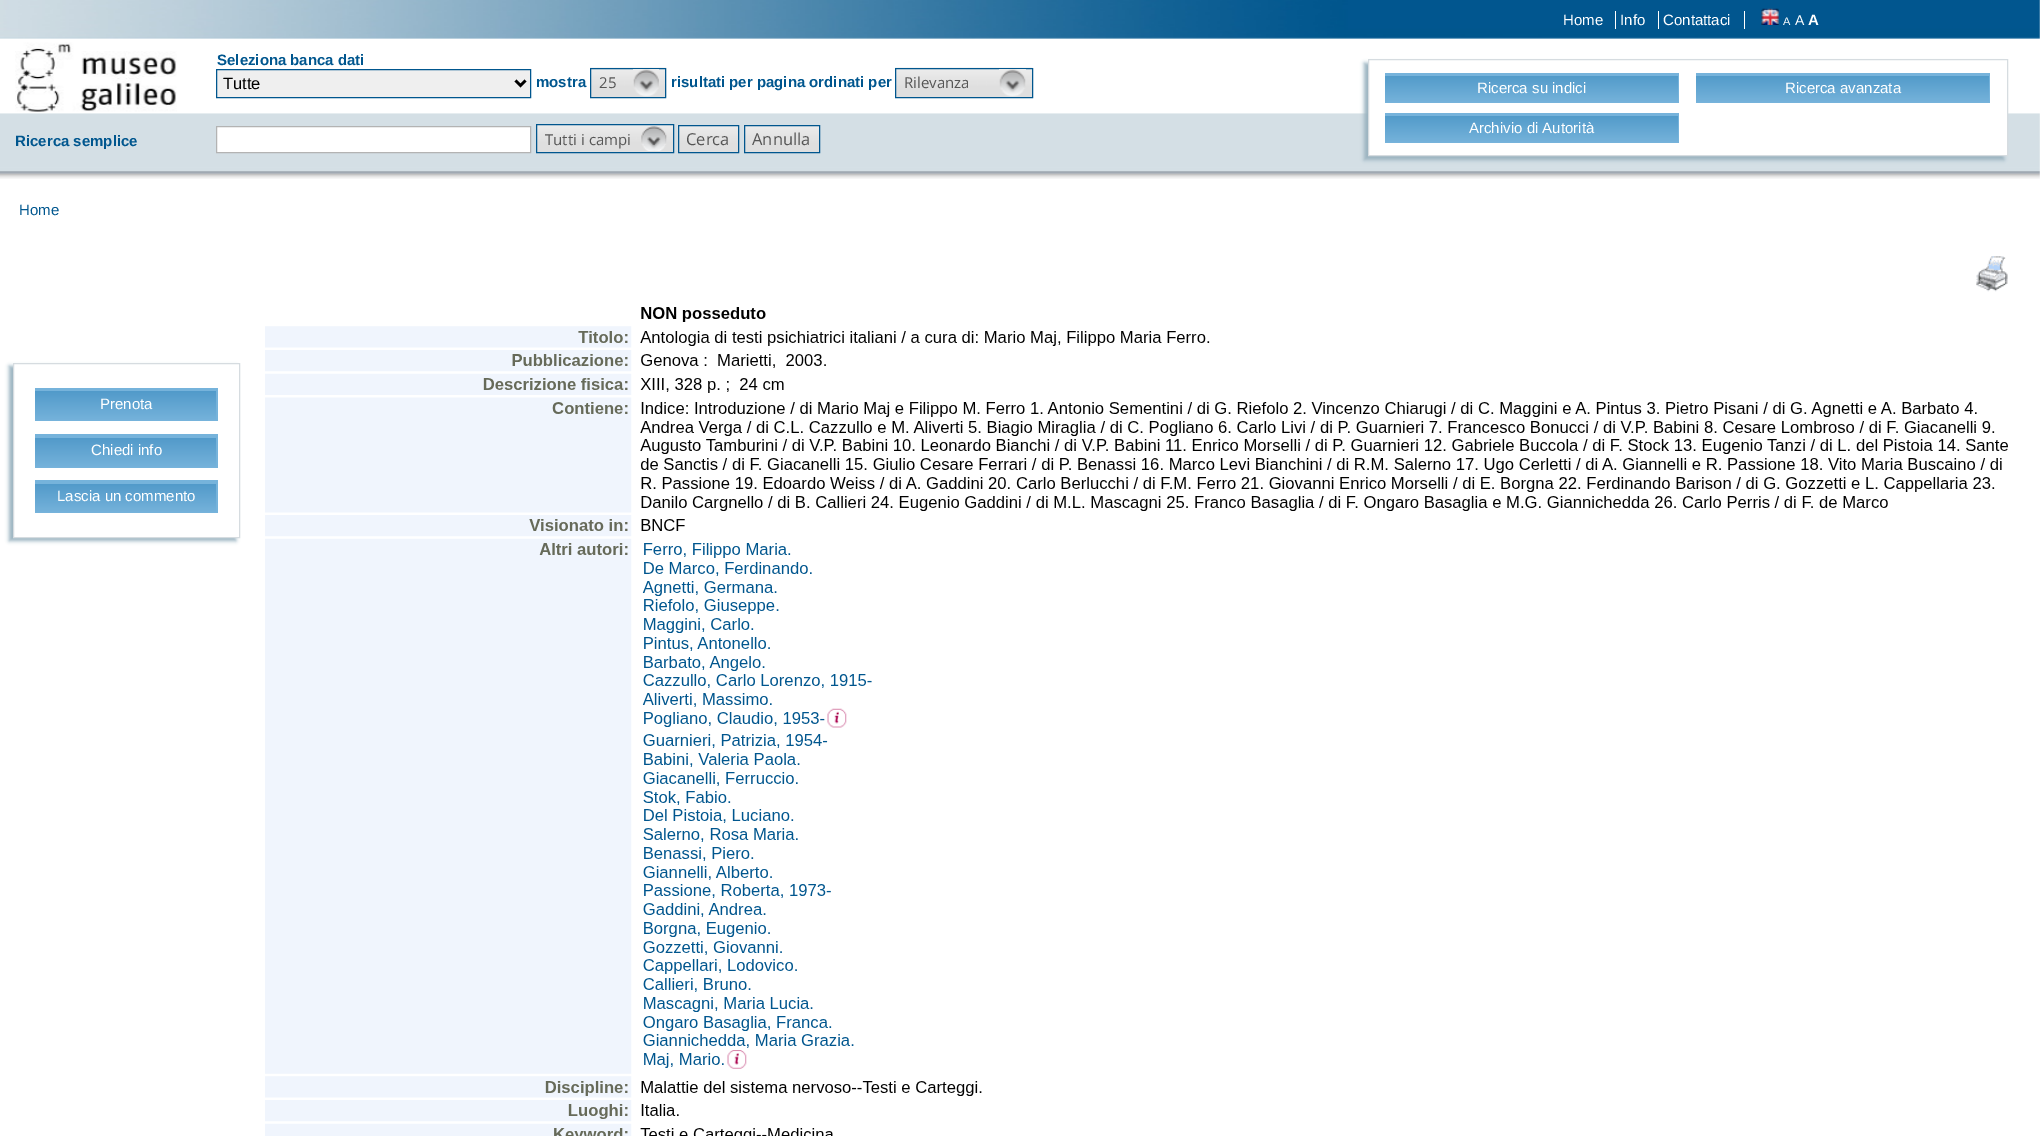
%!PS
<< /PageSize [2040 1136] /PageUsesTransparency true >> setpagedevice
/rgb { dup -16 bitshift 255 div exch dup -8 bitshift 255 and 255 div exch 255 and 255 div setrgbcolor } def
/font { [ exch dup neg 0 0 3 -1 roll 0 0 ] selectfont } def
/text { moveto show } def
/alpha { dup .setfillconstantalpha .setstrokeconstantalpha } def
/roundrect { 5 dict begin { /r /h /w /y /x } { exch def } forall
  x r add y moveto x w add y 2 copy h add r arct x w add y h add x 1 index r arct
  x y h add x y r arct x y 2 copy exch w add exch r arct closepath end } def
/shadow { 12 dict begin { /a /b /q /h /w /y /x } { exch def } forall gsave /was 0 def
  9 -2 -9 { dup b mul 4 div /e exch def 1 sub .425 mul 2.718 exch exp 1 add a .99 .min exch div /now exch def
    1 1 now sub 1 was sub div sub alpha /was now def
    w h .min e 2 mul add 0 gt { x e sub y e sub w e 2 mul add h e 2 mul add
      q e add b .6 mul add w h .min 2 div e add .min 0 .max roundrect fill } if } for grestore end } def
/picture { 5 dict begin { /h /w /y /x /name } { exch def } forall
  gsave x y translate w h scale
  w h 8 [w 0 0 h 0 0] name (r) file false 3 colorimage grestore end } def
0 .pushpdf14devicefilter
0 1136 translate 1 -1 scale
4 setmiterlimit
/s1 { /LiberationSans-Regular 15 font 16#FFFFFF rgb } def
/s2 { /LiberationSans-Regular 11 font 16#FFFFFF rgb } def
/s3 { /LiberationSans-Regular 14 font 16#FFFFFF rgb } def
/s4 { /LiberationSans-Bold 15 font 16#FFFFFF rgb } def
/s5 { /LiberationSans-Bold 15 font 16#00568E rgb } def
/s6 { /LiberationSans-Regular 16.5 font 16#000000 rgb } def
/s7 { /OpenSans-Regular 15 font 16#555555 rgb } def
/s8 { /OpenSans-Regular 16.5 font 16#555555 rgb } def
/s9 { /LiberationSans-Regular 15 font 16#00568E rgb } def
16#FFFFFF rgb
0 0 2040 1136 rectfill
(pic1.raw) 0 0 2040 179 picture
s1
(Home) 1563 25 text
1615 11 1 18 rectfill
(Info) 1620 25 text
1658 11 1 18 rectfill
(Contattaci) 1663 25 text
1744 11 1 18 rectfill
(pic2.raw) 1761 8 18 17 picture
s2
(A) 1783 25 text
s3
(A) 1795 25 text
s4
(A) 1808 25 text
(pic3.raw) 15 42 162 70 picture
s5
(Seleziona banca dati) 217 65 text
16#EFEFEF rgb
216.5 69.5 moveto 530.5 69.5 lineto 530.5 97.5 lineto 216.5 97.5 lineto closepath gsave fill grestore
16#00568E rgb
stroke
16#000000 rgb
2.5 setlinewidth
515.5 80.5 moveto 520.5 85.5 lineto 525.5 80.5 lineto stroke
s6
(Tutte) 223 89 text
s5
(mostra) 536 87 text
(pic4.raw) 590 67 77 30 picture
1 setlinewidth
590.5 68.5 75 29 rectstroke
s7
(25) 599 88 text
(pic5.raw) 633 69 26 28 picture
s5
(risultati per pagina ordinati per) 671 87 text
(pic6.raw) 895 67 138 30 picture
895.5 68.5 137 29 rectstroke
s7
(Rilevanza) 904 88 text
(pic7.raw) 999 69 27 28 picture
s5
(Ricerca semplice) 15 146 text
16#FFFFFF rgb
216.5 126.5 moveto 530.5 126.5 lineto 530.5 152.5 lineto 216.5 152.5 lineto closepath gsave fill grestore
16#B3B3B3 rgb
stroke
(pic8.raw) 537 125 136 27 picture
16#00568E rgb
536.5 124.5 137 28 rectstroke
s7
(Tutti i campi) 545 145 text
(pic9.raw) 641 126 26 25 picture
(pic10.raw) 677 125 61 27 picture
16#00568E rgb
678.5 125.5 60 27 rectstroke
s8
(Cerca) 686 145 text
(pic11.raw) 743 125 76 27 picture
16#00568E rgb
744.5 125.5 75 27 rectstroke
s8
(Annulla) 752 145 text
16#99B2BF rgb
1364 63 640 97 0 2 1 shadow
16#FFFFFF rgb
1368.5 59.5 moveto 2007.5 59.5 lineto 2007.5 155.5 lineto 1368.5 155.5 lineto closepath gsave fill grestore
16#D6DCE0 rgb
stroke
gsave 1385 76 moveto 1678 76 lineto 1678 103 lineto 1385 103 lineto closepath clip newpath
<< /ShadingType 2 /ColorSpace /DeviceRGB /Coords [1532 72 1532 103] /Extend [true true] /Function << /FunctionType 2 /Domain [0 1] /C0 [0.302 0.592 0.784] /C1 [0.463 0.702 0.859] /N 1 >> >> shfill grestore
gsave
1385 73 294 30 rectclip
16#76B3DB rgb
1261 -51 moveto 1802 -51 lineto 1802 226 lineto 1261 226 lineto closepath 1384 76 moveto 1678 76 lineto 1678 106 lineto 1384 106 lineto closepath eofill
grestore
s1
(Ricerca su indici) 1477 93 text
gsave 1696 76 moveto 1989 76 lineto 1989 103 lineto 1696 103 lineto closepath clip newpath
<< /ShadingType 2 /ColorSpace /DeviceRGB /Coords [1843 72 1843 103] /Extend [true true] /Function << /FunctionType 2 /Domain [0 1] /C0 [0.302 0.592 0.784] /C1 [0.463 0.702 0.859] /N 1 >> >> shfill grestore
gsave
1696 73 294 30 rectclip
16#76B3DB rgb
1572 -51 moveto 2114 -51 lineto 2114 226 lineto 1572 226 lineto closepath 1695 76 moveto 1989 76 lineto 1989 106 lineto 1695 106 lineto closepath eofill
grestore
(Ricerca avanzata) 1785 93 text
gsave 1385 116 moveto 1678 116 lineto 1678 143 lineto 1385 143 lineto closepath clip newpath
<< /ShadingType 2 /ColorSpace /DeviceRGB /Coords [1532 112 1532 143] /Extend [true true] /Function << /FunctionType 2 /Domain [0 1] /C0 [0.302 0.592 0.784] /C1 [0.463 0.702 0.859] /N 1 >> >> shfill grestore
gsave
1385 113 294 30 rectclip
16#76B3DB rgb
1261 -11 moveto 1802 -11 lineto 1802 266 lineto 1261 266 lineto closepath 1384 116 moveto 1678 116 lineto 1678 146 lineto 1384 146 lineto closepath eofill
grestore
(Archivio di Autorità) 1469 133 text
s9
(Home) 19 215 text
16#99B2BF rgb
9 366 227 175 0 2 1 shadow
16#FFFFFF rgb
13.5 363.5 moveto 239.5 363.5 lineto 239.5 537.5 lineto 13.5 537.5 lineto closepath gsave fill grestore
16#D6DCE0 rgb
stroke
gsave 35 391 moveto 216 391 lineto 216 421 lineto 35 421 lineto closepath clip newpath
<< /ShadingType 2 /ColorSpace /DeviceRGB /Coords [126 388 126 421] /Extend [true true] /Function << /FunctionType 2 /Domain [0 1] /C0 [0.302 0.592 0.784] /C1 [0.463 0.702 0.859] /N 1 >> >> shfill grestore
gsave
35 388 183 33 rectclip
16#76B3DB rgb
-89 264 moveto 341 264 lineto 341 545 lineto -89 545 lineto closepath 34 391 moveto 216 391 lineto 216 425 lineto 34 425 lineto closepath eofill
grestore
s1
(Prenota) 100 409 text
gsave 35 438 moveto 216 438 lineto 216 468 lineto 35 468 lineto closepath clip newpath
<< /ShadingType 2 /ColorSpace /DeviceRGB /Coords [126 434 126 468] /Extend [true true] /Function << /FunctionType 2 /Domain [0 1] /C0 [0.302 0.592 0.784] /C1 [0.463 0.702 0.859] /N 1 >> >> shfill grestore
gsave
35 434 183 34 rectclip
16#76B3DB rgb
-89 310 moveto 341 310 lineto 341 591 lineto -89 591 lineto closepath 34 438 moveto 216 438 lineto 216 471 lineto 34 471 lineto closepath eofill
grestore
(Chiedi info) 91 455 text
gsave 35 484 moveto 216 484 lineto 216 513 lineto 35 513 lineto closepath clip newpath
<< /ShadingType 2 /ColorSpace /DeviceRGB /Coords [126 480 126 513] /Extend [true true] /Function << /FunctionType 2 /Domain [0 1] /C0 [0.302 0.592 0.784] /C1 [0.463 0.702 0.859] /N 1 >> >> shfill grestore
gsave
35 480 183 33 rectclip
16#76B3DB rgb
-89 356 moveto 341 356 lineto 341 636 lineto -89 636 lineto closepath 34 484 moveto 216 484 lineto 216 516 lineto 34 516 lineto closepath eofill
grestore
(Lascia un commento) 57 501 text
(pic12.raw) 265 256 1743 880 picture
.poppdf14devicefilter showpage
